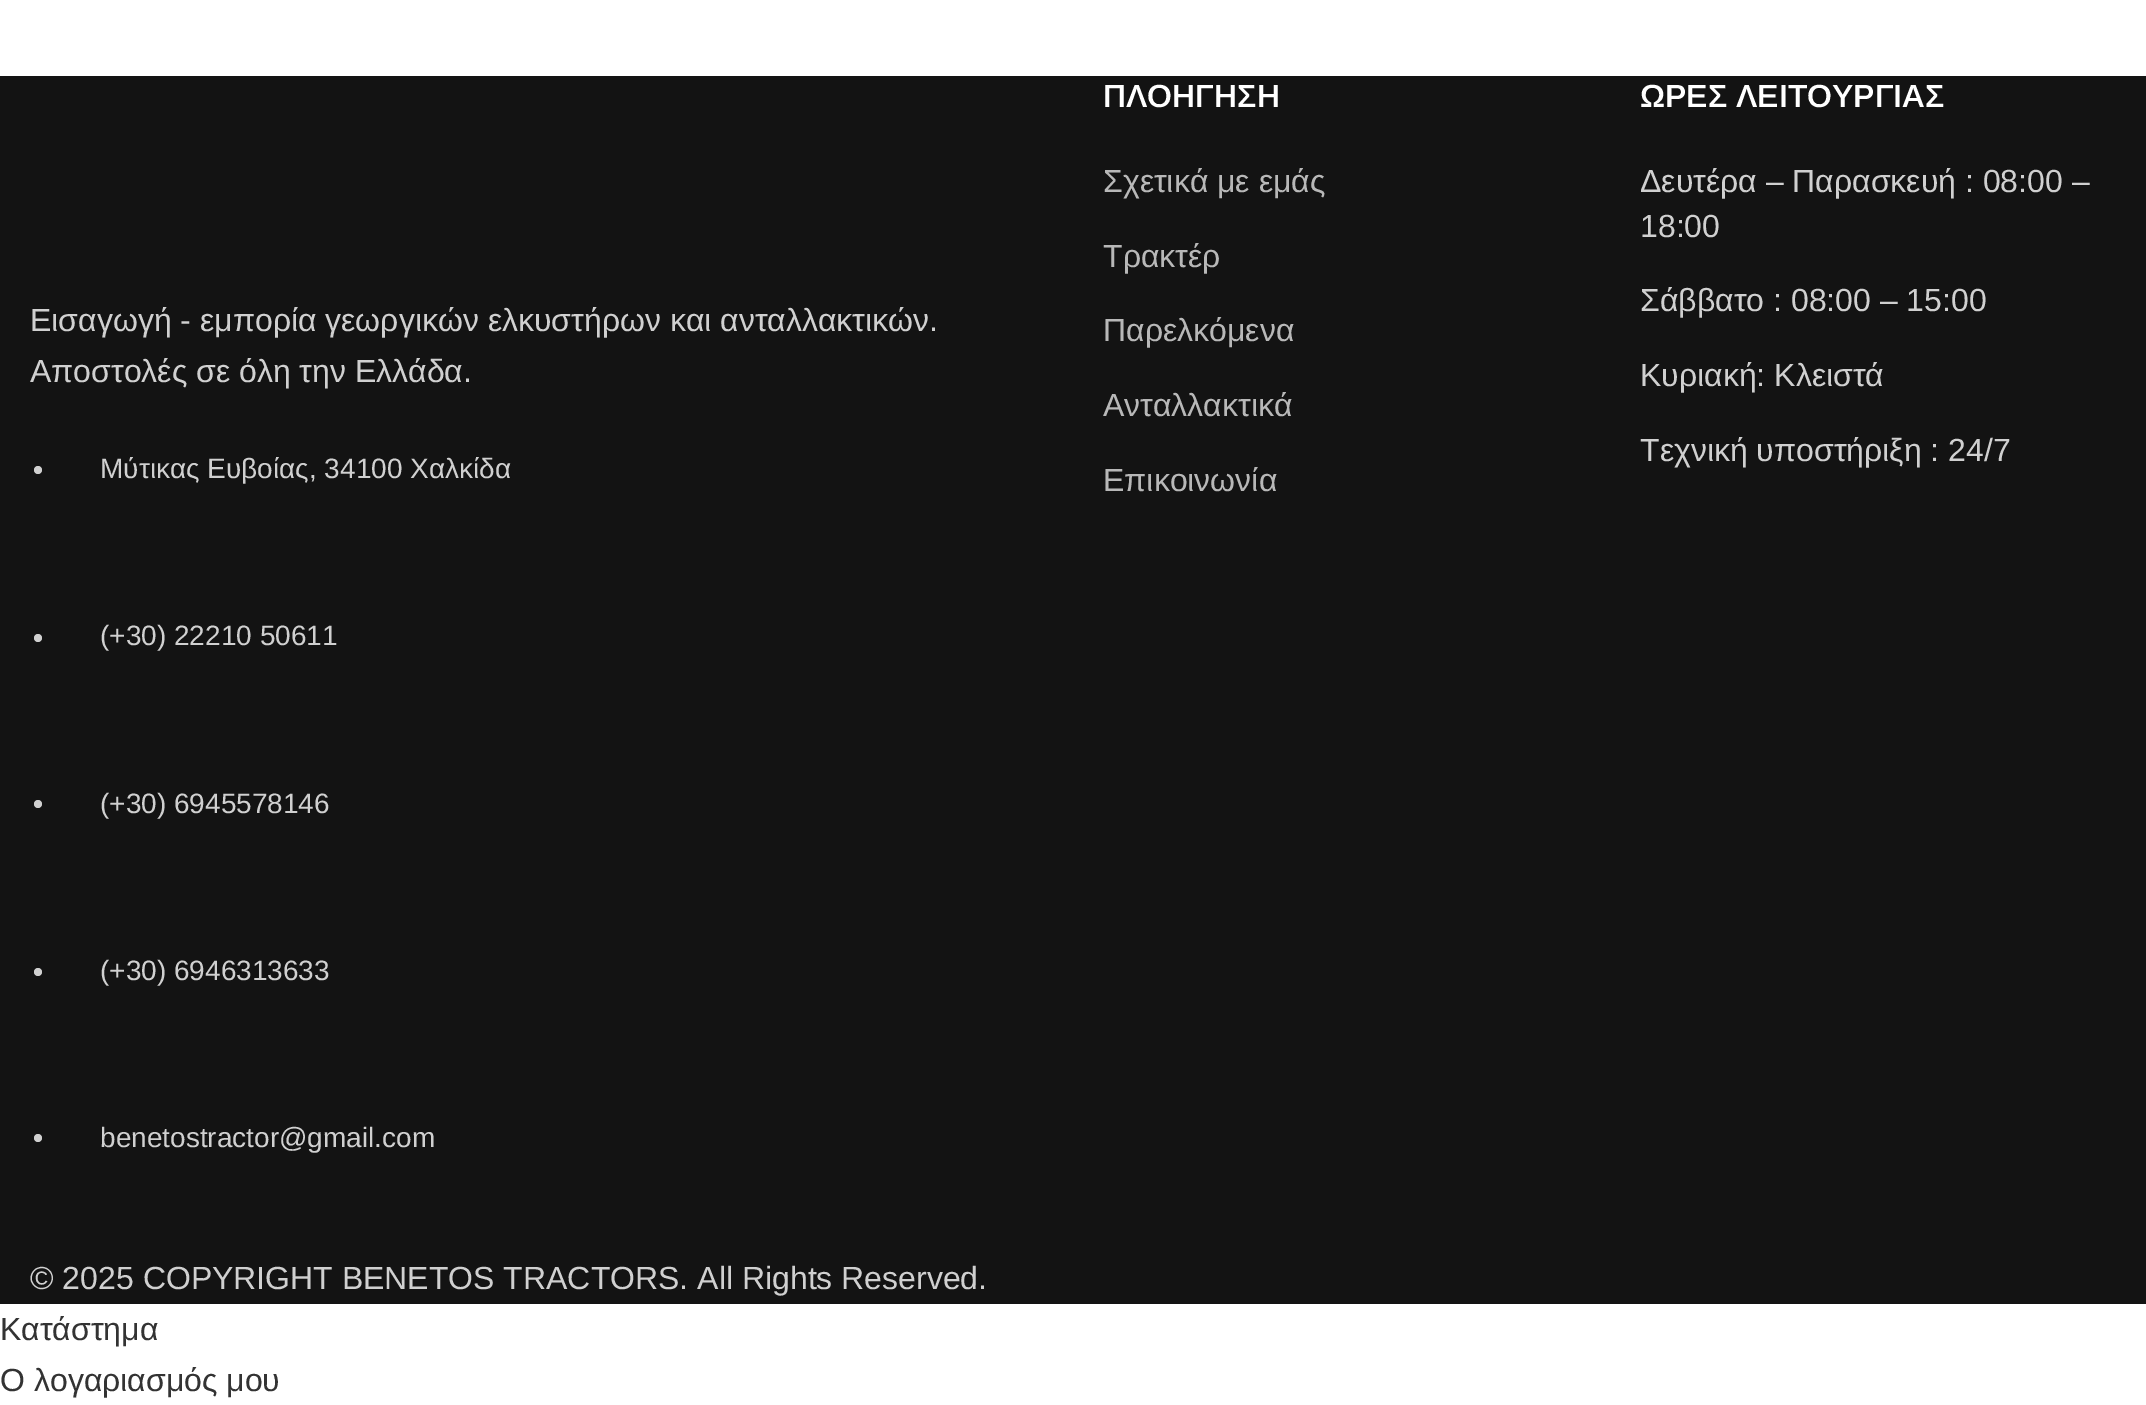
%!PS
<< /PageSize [2146 1405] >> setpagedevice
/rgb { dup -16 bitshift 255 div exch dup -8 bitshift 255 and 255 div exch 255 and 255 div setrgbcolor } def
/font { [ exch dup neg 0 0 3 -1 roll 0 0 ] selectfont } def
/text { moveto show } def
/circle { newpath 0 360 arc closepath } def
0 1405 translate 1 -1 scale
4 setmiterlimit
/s1 { /Arimo-Regular 32 font 16#D0D0D0 rgb } def
/s2 { /Arimo-Regular 28 font 16#D0D0D0 rgb } def
/s3 { /Arimo-SemiBold 32 font 16#FFFFFF rgb } def
/s4 { /Arimo-Regular 32 font 16#B8B8B8 rgb } def
/s5 { /Arimo-Regular 32 font 16#333333 rgb } def
16#FFFFFF rgb
0 0 2146 1405 rectfill
16#131313 rgb
0 76 2146 1228 rectfill
s1
(Εισαγωγή - εμπορία γεωργικών ελκυστήρων και ανταλλακτικών.) 30 331 text
(Αποστολές σε όλη την Ελλάδα.) 30 382 text
38 470 4 circle fill
s2
(Μύτικας Ευβοίας, 34100 Χαλκίδα) 100 478 text
38 638 4 circle fill
(\(+30\) 22210 50611) 100 645 text
38 804 4 circle fill
(\(+30\) 6945578146) 100 813 text
38 972 4 circle fill
(\(+30\) 6946313633) 100 980 text
38 1138 4 circle fill
(benetostractor@gmail.com) 100 1147 text
s3
(ΠΛΟΗΓΗΣΗ) 1103 107 text
s4
(Σχετικά με εμάς) 1103 192 text
(Τρακτέρ) 1103 267 text
(Παρελκόμενα) 1103 341 text
(Ανταλλακτικά) 1103 416 text
(Επικοινωνία) 1103 491 text
s3
(ΩΡΕΣ ΛΕΙΤΟΥΡΓΙΑΣ) 1640 107 text
s1
(Δευτέρα – Παρασκευή : 08:00 –) 1640 192 text
(18:00) 1640 237 text
(Σάββατο : 08:00 – 15:00) 1640 311 text
(Κυριακή: Κλειστά) 1640 386 text
(Τεχνική υποστήριξη : 24/7) 1640 461 text
(© 2025 COPYRIGHT BENETOS TRACTORS. All Rights Reserved.) 30 1289 text
s5
(Κατάστημα) 0 1340 text
(Ο λογαριασμός μου) 0 1391 text
showpage
